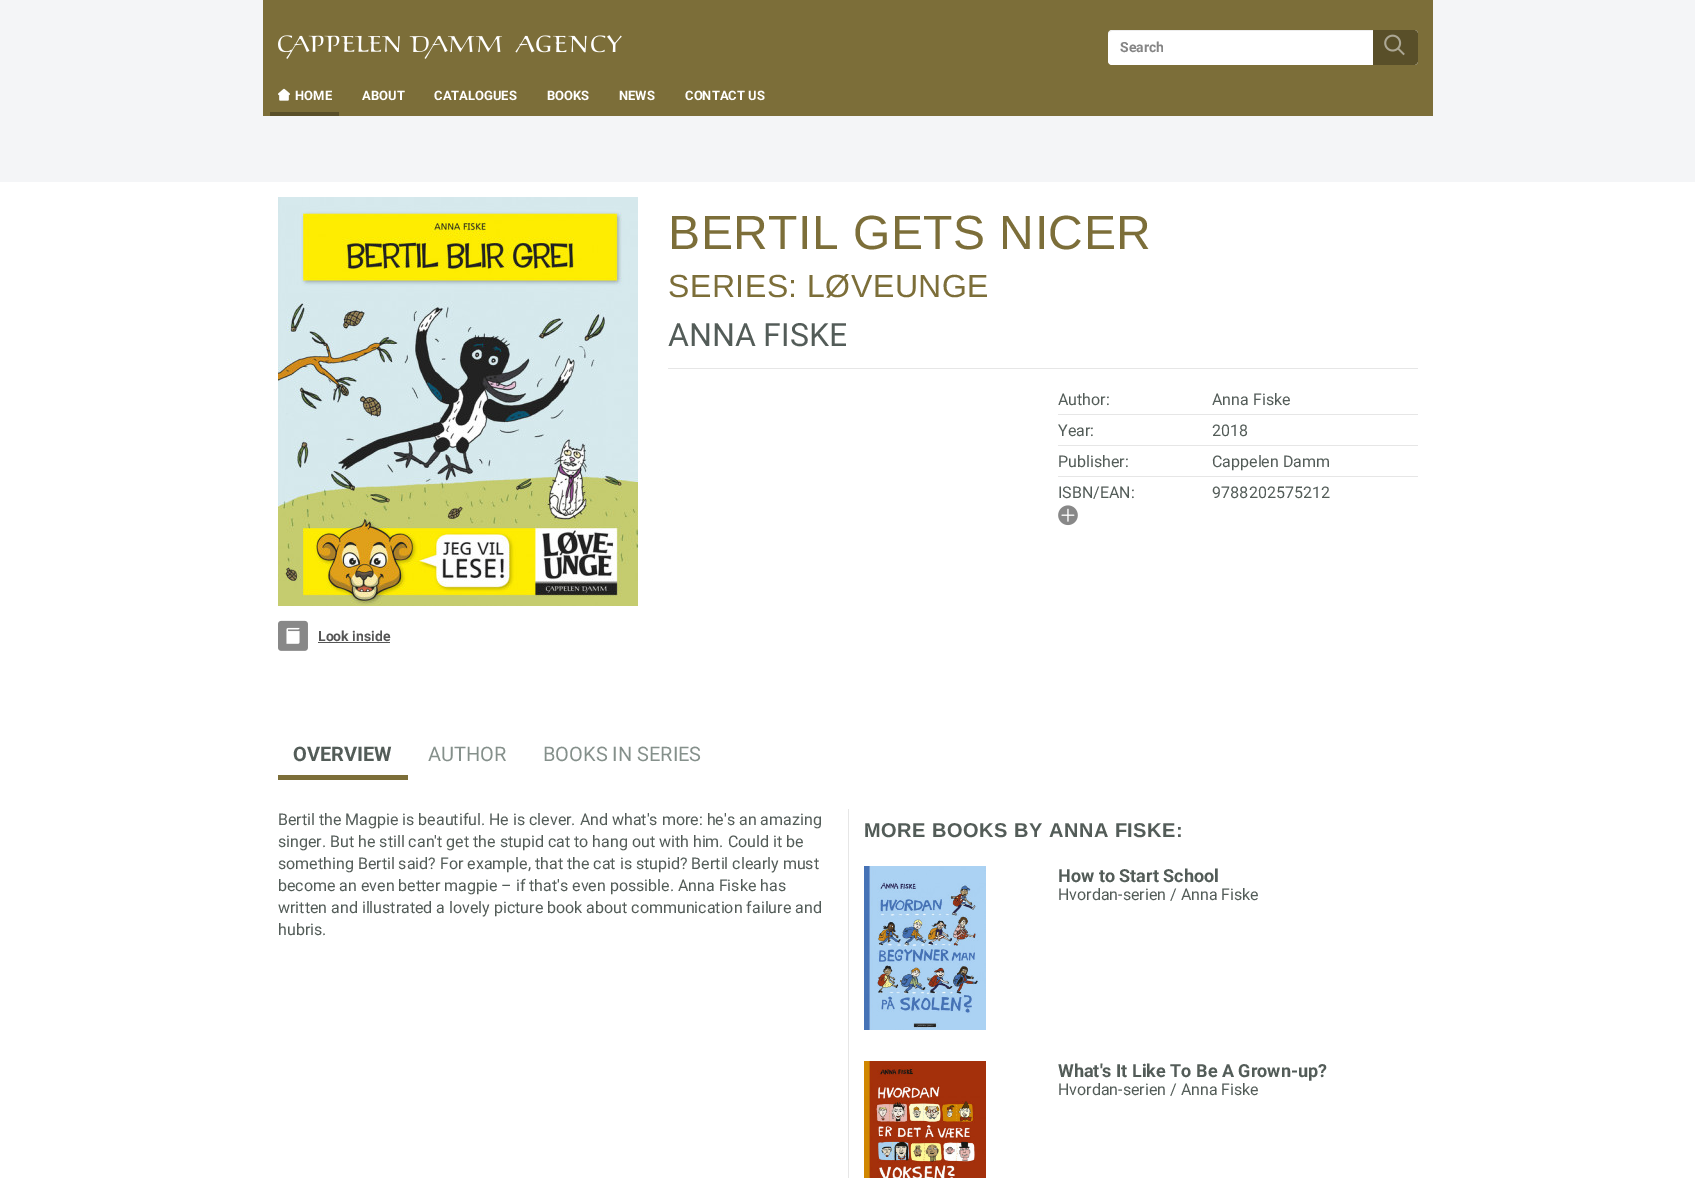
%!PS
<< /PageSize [1695 1178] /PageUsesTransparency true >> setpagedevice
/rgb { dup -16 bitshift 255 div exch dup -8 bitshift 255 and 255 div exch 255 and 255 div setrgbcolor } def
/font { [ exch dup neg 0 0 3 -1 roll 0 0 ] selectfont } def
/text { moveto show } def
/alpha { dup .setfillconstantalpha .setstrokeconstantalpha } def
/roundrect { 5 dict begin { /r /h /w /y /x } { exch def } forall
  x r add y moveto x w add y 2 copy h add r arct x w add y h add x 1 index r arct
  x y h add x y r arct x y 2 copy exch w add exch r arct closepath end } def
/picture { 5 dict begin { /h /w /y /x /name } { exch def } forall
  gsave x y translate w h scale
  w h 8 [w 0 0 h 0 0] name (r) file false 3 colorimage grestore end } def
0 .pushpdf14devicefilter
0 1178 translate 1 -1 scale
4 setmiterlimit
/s1 { /Roboto-Bold 14 font 16#858585 rgb } def
/s2 { /Roboto-Bold 13 font 16#FFFFFF rgb } def
/s3 { /Roboto-Regular 32 font 16#535C58 rgb } def
/s4 { /Roboto-Regular 16 font 16#535C58 rgb } def
/s5 { /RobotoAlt-Regular 16 font 16#535C58 rgb } def
/s6 { /Roboto-Bold 14 font 16#555555 rgb } def
/s7 { /Roboto-Bold 20 font 16#535C58 rgb } def
/s8 { /Roboto-Regular 20 font 16#85908B rgb } def
/s9 { /Roboto-Bold 18 font 16#535C58 rgb } def
16#F4F5F7 rgb
0 0 1695 1178 rectfill
16#7C6E39 rgb
263 0 1170 116 rectfill
(pic1.raw) 278 35 344 24 picture
16#FFFFFF rgb
1108 30 310 35 4 roundrect fill
0.07 alpha
16#000000 rgb
1112 31 moveto 1414 31 lineto 1416 31 1418 33 1418 35 curveto 1418 32 1417 30 1414 30 curveto 1112 30 lineto 1109 31 lineto 1108 32 1108 34 1108 35 curveto 1108 33 1110 31 1112 31 curveto closepath fill
1 alpha
s1
(Search) 1120 52 text
16#594F29 rgb
1373 30 moveto 1414 30 lineto 1416 30 1418 32 1418 34 curveto 1418 61 lineto 1418 63 1416 65 1414 65 curveto 1373 65 lineto closepath fill
(pic2.raw) 1384 34 21 22 picture
270 112 69 4 rectfill
(pic3.raw) 278 88 12 13 picture
s2
(HOME) 295 100 text
(ABOUT) 362 100 text
(CATALOGUES) 434 100 text
(BOOKS) 547 100 text
(NEWS) 619 100 text
(CONTACT US) 685 100 text
0 182 1695 996 rectfill
16#E6E6E6 rgb
668 368 750 1 rectfill
/LiberationSans-Regular 48 font
16#7C6E39 rgb
668 249 moveto 0.5 0 (BERTIL GETS NICER) ashow
/LiberationSans-Regular 32 font
668 297 moveto 0.5 0 (SERIES: LØVEUNGE) ashow
s3
(ANNA FISKE) 668 346 text
16#E6E6E6 rgb
1058 414 360 1 rectfill
s4
(Author:) 1058 405 text
(Anna Fiske) 1212 405 text
16#E6E6E6 rgb
1058 445 360 1 rectfill
s4
(Year:) 1058 436 text
(2018) 1212 436 text
16#E6E6E6 rgb
1058 476 360 1 rectfill
s4
(Publisher:) 1058 467 text
(Cappelen Damm) 1212 467 text
(ISBN/EAN:) 1058 498 text
s5
(9788202575212) 1212 498 text
(pic4.raw) 1058 505 20 21 picture
(pic5.raw) 278 197 360 409 picture
(pic6.raw) 278 620 30 31 picture
s6
(Look inside) 318 641 text
318 642 72 1 rectfill
16#7C6E39 rgb
278 775 130 5 rectfill
s7
(OVERVIEW) 293 761 text
s8
(AUTHOR) 428 761 text
(BOOKS IN SERIES) 543 761 text
s4
(Bertil the Magpie is beautiful. He is clever. And what's more: he's an amazing) 278 825 text
(singer. But he still can't get the stupid cat to hang out with him. Could it be) 278 847 text
(something Bertil said? For example, that the cat is stupid? Bertil clearly must) 278 869 text
(become an even better magpie – if that's even possible. Anna Fiske has) 278 891 text
(written and illustrated a lovely picture book about communication failure and) 278 913 text
(hubris.) 278 935 text
16#E6E6E6 rgb
848 809 1 369 rectfill
/LiberationSans-Bold 20 font
16#535C58 rgb
864 837 moveto 0.5 0 (MORE BOOKS BY ANNA FISKE:) ashow
(pic7.raw) 864 866 122 164 picture
s9
(How to Start School) 1058 882 text
s4
(Hvordan-serien / Anna Fiske) 1058 900 text
(pic8.raw) 864 1061 122 117 picture
s9
(What's It Like To Be A Grown-up?) 1058 1077 text
s4
(Hvordan-serien / Anna Fiske) 1058 1095 text
.poppdf14devicefilter showpage
